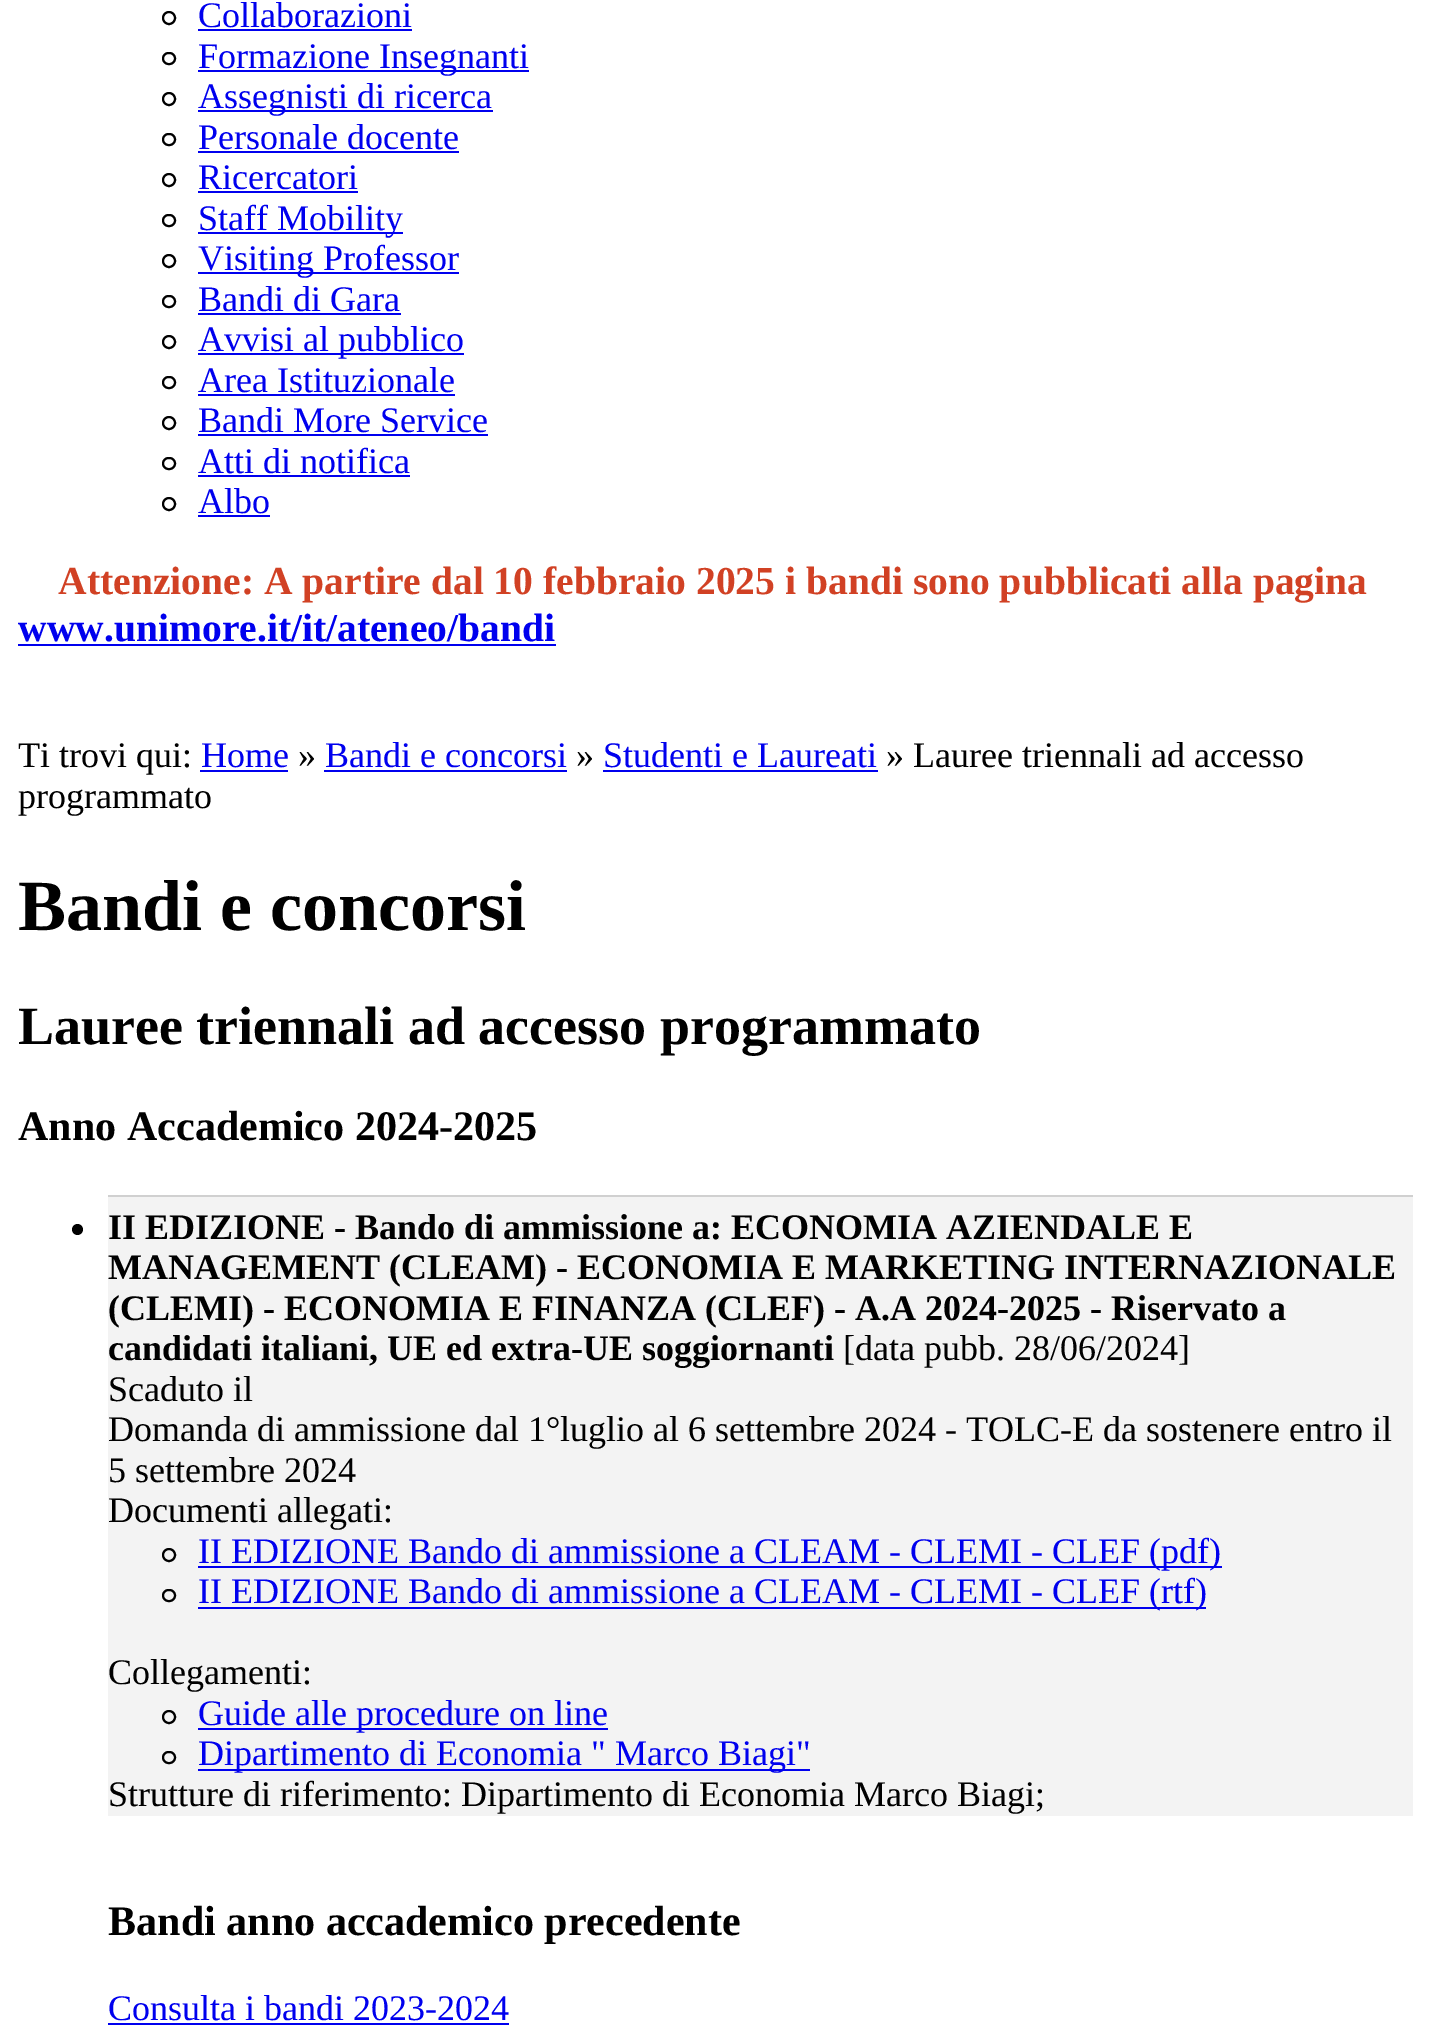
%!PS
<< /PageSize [1429 2039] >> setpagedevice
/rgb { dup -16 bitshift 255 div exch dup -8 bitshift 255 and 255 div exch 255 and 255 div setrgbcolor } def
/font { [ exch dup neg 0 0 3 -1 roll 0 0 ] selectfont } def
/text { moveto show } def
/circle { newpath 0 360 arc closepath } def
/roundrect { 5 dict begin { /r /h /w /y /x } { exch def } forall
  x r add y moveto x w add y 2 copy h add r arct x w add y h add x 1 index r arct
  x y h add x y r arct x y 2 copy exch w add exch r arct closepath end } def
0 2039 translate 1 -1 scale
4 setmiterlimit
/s1 { /LiberationSerif-Regular 36 font 16#0000EE rgb } def
/s2 { /LiberationSerif-Bold 39.6 font 16#D14124 rgb } def
/s3 { /LiberationSerif-Bold 39.6 font 16#0000EE rgb } def
/s4 { /LiberationSerif-Regular 36 font 16#000000 rgb } def
/s5 { /LiberationSerif-Bold 72 font 16#000000 rgb } def
/s6 { /LiberationSerif-Bold 54 font 16#000000 rgb } def
/s7 { /LiberationSerif-Bold 42.1 font 16#000000 rgb } def
/s8 { /LiberationSerif-Bold 36 font 16#000000 rgb } def
16#FFFFFF rgb
0 0 1429 2039 rectfill
16#000000 rgb
2 setlinewidth
169 18 6 circle stroke
s1
(Collaborazioni) 198 27 text
198 29 214 2 rectfill
16#000000 rgb
163 53 12 11 5.5 roundrect stroke
16#0000EE rgb
198 70 331 2 rectfill
(Formazione Insegnanti) 198 68 text
16#000000 rgb
169 99 6 circle stroke
16#0000EE rgb
198 110 295 2 rectfill
(Assegnisti di ricerca) 198 108 text
16#000000 rgb
163 134 12 11 5.5 roundrect stroke
s1
(Personale docente) 198 149 text
198 151 261 2 rectfill
16#000000 rgb
169 180 6 circle stroke
s1
(Ricercatori) 198 189 text
198 191 160 2 rectfill
16#000000 rgb
163 215 12 11 5.5 roundrect stroke
16#0000EE rgb
198 232 205 2 rectfill
(Staff Mobility) 198 230 text
16#000000 rgb
169 261 6 circle stroke
16#0000EE rgb
198 272 261 2 rectfill
(Visiting Professor) 198 270 text
16#000000 rgb
163 296 12 11 5.5 roundrect stroke
s1
(Bandi di Gara) 198 311 text
198 313 203 2 rectfill
16#000000 rgb
169 342 6 circle stroke
16#0000EE rgb
198 353 266 2 rectfill
(Avvisi al pubblico) 198 351 text
16#000000 rgb
163 377 12 11 5.5 roundrect stroke
s1
(Area Istituzionale) 198 392 text
198 394 257 2 rectfill
16#000000 rgb
169 423 6 circle stroke
s1
(Bandi More Service) 198 432 text
198 434 290 2 rectfill
16#000000 rgb
163 458 12 11 5.5 roundrect stroke
s1
(Atti di notifica) 198 473 text
198 475 212 2 rectfill
16#000000 rgb
169 504 6 circle stroke
s1
(Albo) 198 513 text
198 515 72 2 rectfill
s2
(Attenzione: A partire dal 10 febbraio 2025 i bandi sono pubblicati alla pagina) 58 594 text
s3
(www.unimore.it/it/ateneo/bandi) 18 641 text
18 644 538 2 rectfill
s4
(Ti trovi qui:) 18 767 text
s1
(Home) 201 767 text
200 770 88 2 rectfill
s4
(») 298 767 text
s1
(Bandi e concorsi) 325 767 text
324 770 243 2 rectfill
s4
(») 576 767 text
s1
(Studenti e Laureati) 603 767 text
603 770 275 2 rectfill
s4
(» Lauree triennali ad accesso) 886 767 text
(programmato) 18 808 text
s5
(Bandi e concorsi) 18 930 text
s6
(Lauree triennali ad accesso programmato) 18 1044 text
s7
(Anno Accademico 2024-2025) 18 1140 text
16#F3F3F3 rgb
108 1197 1305 619 rectfill
16#D0D0D0 rgb
108 1195 1305 2 rectfill
16#000000 rgb
77.5 1229.5 5.5 circle fill
s8
(II EDIZIONE - Bando di ammissione a: ECONOMIA AZIENDALE E) 108 1239 text
(MANAGEMENT \(CLEAM\) - ECONOMIA E MARKETING INTERNAZIONALE) 108 1279 text
(\(CLEMI\) - ECONOMIA E FINANZA \(CLEF\) - A.A 2024-2025 - Riservato a) 108 1320 text
(candidati italiani, UE ed extra-UE soggiornanti) 108 1360 text
s4
([data pubb. 28/06/2024]) 843 1360 text
(Scaduto il) 108 1401 text
(Domanda di ammissione dal 1°luglio al 6 settembre 2024 - TOLC-E da sostenere entro il) 108 1441 text
(5 settembre 2024) 108 1482 text
(Documenti allegati:) 108 1522 text
169 1555 6 circle stroke
16#0000EE rgb
198 1566 1024 2 rectfill
(II EDIZIONE Bando di ammissione a CLEAM - CLEMI - CLEF \(pdf\)) 198 1563 text
16#000000 rgb
163 1590 12 11 5.5 roundrect stroke
16#0000EE rgb
198 1607 1008 2 rectfill
(II EDIZIONE Bando di ammissione a CLEAM - CLEMI - CLEF \(rtf\)) 198 1603 text
s4
(Collegamenti:) 108 1684 text
169 1717 6 circle stroke
16#0000EE rgb
198 1728 410 2 rectfill
(Guide alle procedure on line) 198 1725 text
16#000000 rgb
163 1752 12 11 5.5 roundrect stroke
16#0000EE rgb
198 1769 612 2 rectfill
(Dipartimento di Economia " Marco Biagi") 198 1765 text
s4
(Strutture di riferimento: Dipartimento di Economia Marco Biagi;) 108 1806 text
s7
(Bandi anno accademico precedente) 108 1935 text
s1
(Consulta i bandi 2023-2024) 108 2020 text
108 2023 401 2 rectfill
showpage
